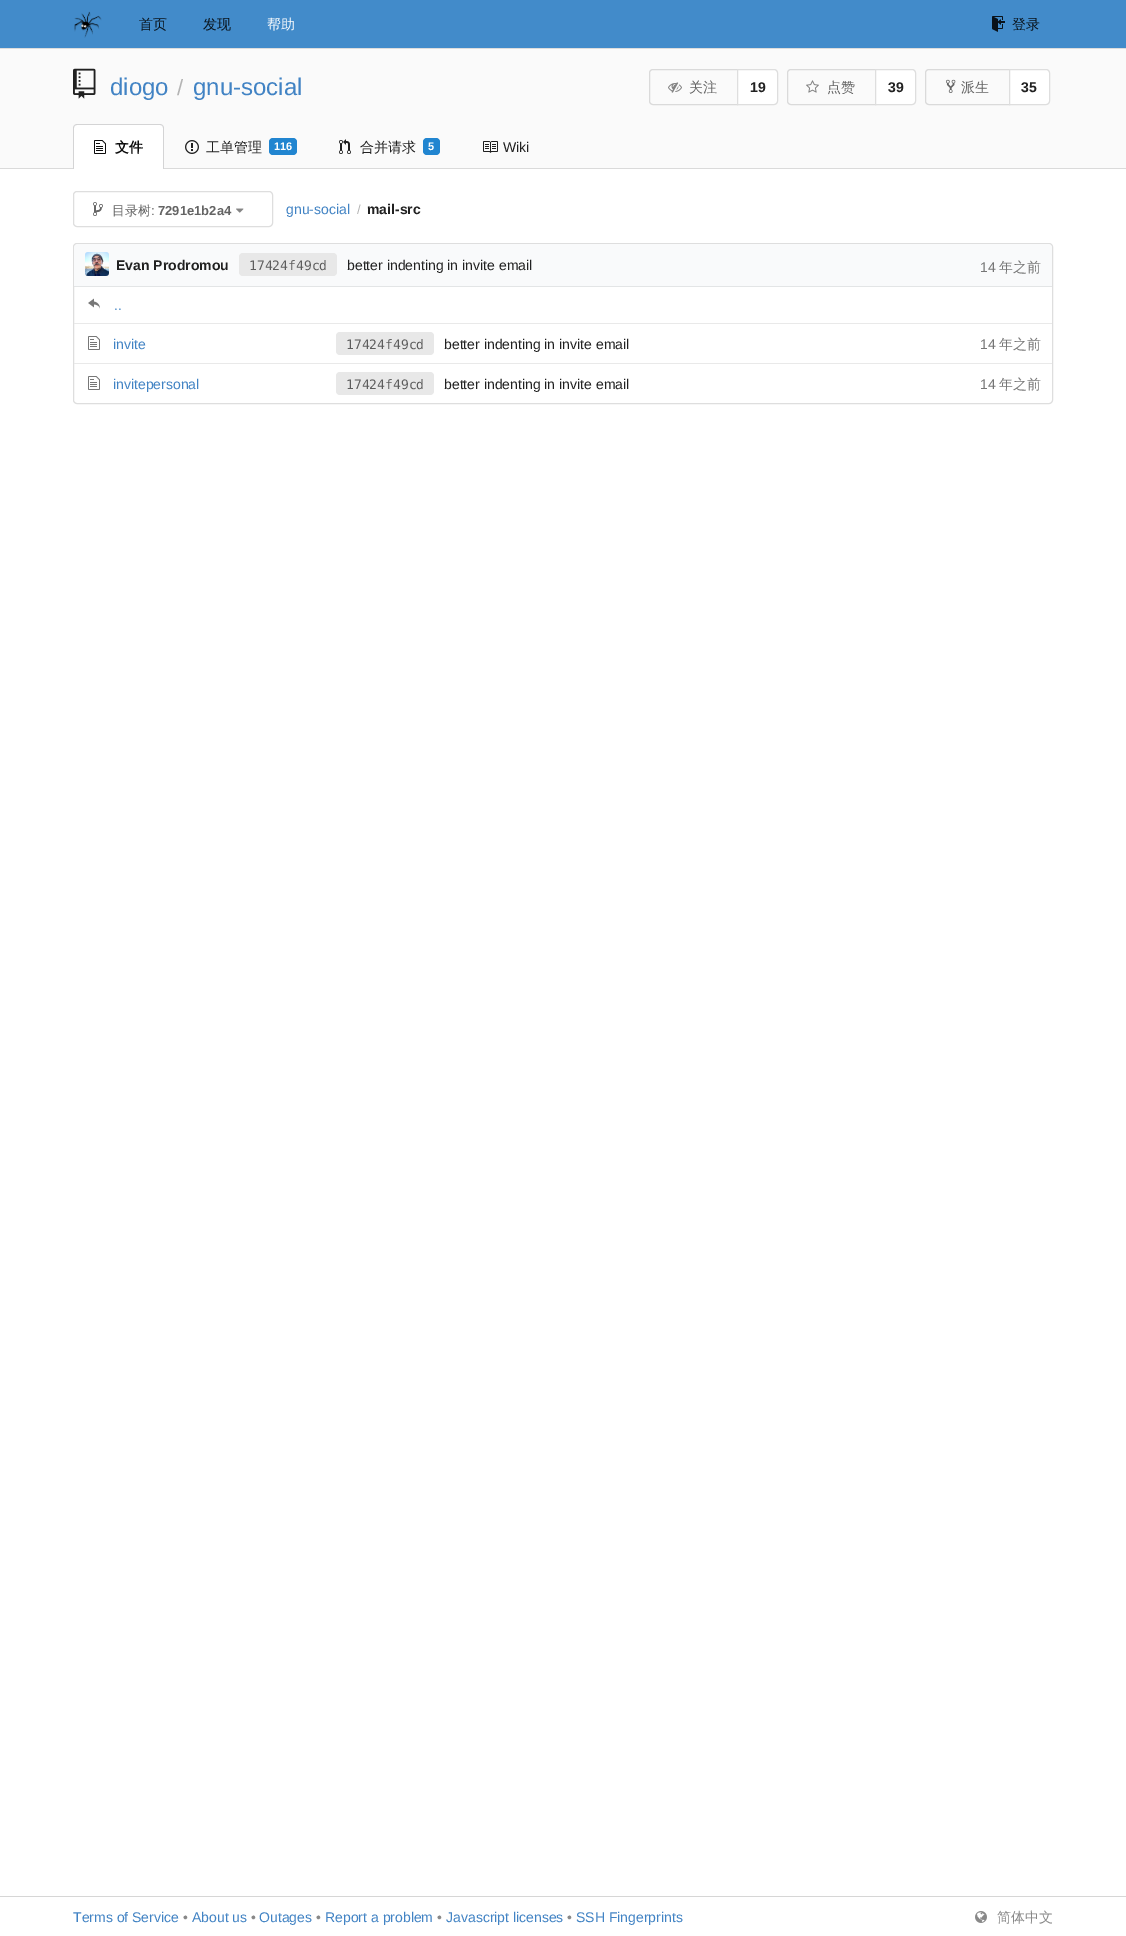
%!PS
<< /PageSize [1126 1936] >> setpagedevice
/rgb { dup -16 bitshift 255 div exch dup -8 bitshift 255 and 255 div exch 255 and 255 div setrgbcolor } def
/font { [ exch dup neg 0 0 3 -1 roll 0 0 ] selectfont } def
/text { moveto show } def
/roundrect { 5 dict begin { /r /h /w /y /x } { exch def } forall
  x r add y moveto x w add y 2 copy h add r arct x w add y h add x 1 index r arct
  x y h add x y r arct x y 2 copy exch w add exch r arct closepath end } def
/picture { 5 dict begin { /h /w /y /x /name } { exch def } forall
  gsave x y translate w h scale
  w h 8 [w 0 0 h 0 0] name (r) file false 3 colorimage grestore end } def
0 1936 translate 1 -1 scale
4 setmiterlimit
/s1 { /WenQuanYiZenHei-Medium 14 font 16#09121A rgb } def
/s2 { /WenQuanYiZenHei-Medium 14 font 16#FFFFFF rgb } def
/s3 { /LiberationSans-Regular 24 font 16#4183C4 rgb } def
/s4 { /LiberationSans-Regular 22 font 16#B4B4B4 rgb } def
/s5 { /WenQuanYiZenHei-Medium 14 font 16#646464 rgb } def
/s6 { /LiberationSans-Bold 14 font 16#212121 rgb } def
/s7 { /WenQuanYiZenHei-Bold 14 font 16#0D0D0D rgb } def
/s8 { /WenQuanYiZenHei-Medium 14 font 16#212121 rgb } def
/s9 { /LiberationSans-Bold 11 font 16#FFFFFF rgb } def
/s10 { /LiberationSans-Regular 14 font 16#212121 rgb } def
/s11 { /WenQuanYiZenHei-Medium 13 font 16#646464 rgb } def
/s12 { /LiberationSans-Regular 13 font 16#646464 rgb } def
/s13 { /LiberationSans-Bold 13 font 16#646464 rgb } def
/s14 { /LiberationSans-Regular 14 font 16#4183C4 rgb } def
/s15 { /LiberationSans-Regular 13 font 16#B4B4B4 rgb } def
/s16 { /DejaVuSansMono-Regular 13 font 16#5D5D5D rgb } def
/s17 { /LiberationSans-Regular 14 font 16#767676 rgb } def
/s18 { /WenQuanYiZenHei-Medium 14 font 16#767676 rgb } def
/s19 { /LiberationSans-Regular 14 font 16#888888 rgb } def
/s20 { /WenQuanYiZenHei-Medium 14 font 16#888888 rgb } def
16#FFFFFF rgb
0 0 1126 1936 rectfill
16#428BCA rgb
0 0 1126 48 rectfill
16#DDDDDD rgb
0 48 1126 1 rectfill
(pic1.raw) 74 11 28 27 picture
s1
(首页) 139 29 text
(发现) 203 29 text
s2
(帮助) 267 29 text
(pic2.raw) 992 16 13 16 picture
s1
(登录) 1012 29 text
16#FAFAFA rgb
0 49 1126 119 rectfill
(pic3.raw) 73 68 23 31 picture
s3
(diogo) 110 95 text
s4
(/) 177 95 text
s3
(gnu-social) 193 95 text
16#DADADA rgb
653 69.5 moveto 737.5 69.5 lineto 737.5 104.5 lineto 653 104.5 lineto 651 104.5 649.5 103 649.5 101 curveto 649.5 73 lineto 649.5 71 651 69.5 653 69.5 curveto closepath stroke
(pic4.raw) 668 82 14 11 picture
s5
(关注) 689 92 text
16#FFFFFF rgb
737.5 69.5 moveto 774 69.5 lineto 776 69.5 777.5 71 777.5 73 curveto 777.5 101 lineto 777.5 103 776 104.5 774 104.5 curveto 737.5 104.5 lineto closepath gsave fill grestore
16#DEDEDE rgb
stroke
s6
(19) 750 92 text
16#DADADA rgb
791 69.5 moveto 875.5 69.5 lineto 875.5 104.5 lineto 791 104.5 lineto 789 104.5 787.5 103 787.5 101 curveto 787.5 73 lineto 787.5 71 789 69.5 791 69.5 curveto closepath stroke
(pic5.raw) 806 80 13 13 picture
s5
(点赞) 827 92 text
16#FFFFFF rgb
875.5 69.5 moveto 912 69.5 lineto 914 69.5 915.5 71 915.5 73 curveto 915.5 101 lineto 915.5 103 914 104.5 912 104.5 curveto 875.5 104.5 lineto closepath gsave fill grestore
16#DEDEDE rgb
stroke
s6
(39) 888 92 text
16#DADADA rgb
929 69.5 moveto 1009.5 69.5 lineto 1009.5 104.5 lineto 929 104.5 lineto 927 104.5 925.5 103 925.5 101 curveto 925.5 73 lineto 925.5 71 927 69.5 929 69.5 curveto closepath stroke
(pic6.raw) 946 79 10 14 picture
s5
(派生) 961 92 text
16#FFFFFF rgb
1009.5 69.5 moveto 1046 69.5 lineto 1048 69.5 1049.5 71 1049.5 73 curveto 1049.5 101 lineto 1049.5 103 1048 104.5 1046 104.5 curveto 1009.5 104.5 lineto closepath gsave fill grestore
16#DEDEDE rgb
stroke
s6
(35) 1021 92 text
16#DADADA rgb
0 168 1126 1 rectfill
16#FFFFFF rgb
77 124 moveto 160 124 lineto 162 124 164 126 164 128 curveto 164 169 lineto 73 169 lineto 73 128 lineto 73 126 75 124 77 124 curveto closepath fill
16#D4D4D5 rgb
77 124 moveto 160 124 lineto 162 124 164 126 164 128 curveto 164 169 lineto 73 169 lineto 73 128 lineto 73 126 75 124 77 124 curveto closepath 77 125 moveto 160 125 lineto 162 125 163 126 163 128 curveto 163 169 lineto 74 169 lineto 74 128 lineto 74 126 75 125 77 125 curveto closepath eofill
(pic7.raw) 94 140 12 14 picture
s7
(文件) 115 152 text
(pic8.raw) 185 140 14 14 picture
s8
(工单管理) 206 152 text
16#2185D0 rgb
269 138 28 17 4 roundrect fill
s9
(116) 274 150 text
(pic9.raw) 339 139 12 15 picture
s8
(合并请求) 360 152 text
16#2185D0 rgb
423 138 17 17 4 roundrect fill
s9
(5) 428 150 text
(pic10.raw) 483 141 15 12 picture
s10
(Wiki) 503 152 text
16#DEDEDE rgb
73.5 191.5 199 35 3.5 roundrect stroke
(pic11.raw) 93 202 10 14 picture
s11
(目录树) 112 215 text
s12
(:) 151 215 text
s13
(7291e1b2a4) 158 215 text
(pic12.raw) 236 208 8 5 picture
s14
(gnu-social) 286 214 text
s15
(/) 357 214 text
s6
(mail-src) 367 214 text
16#DEDEDE rgb
73.5 243.5 979 160 3.5 roundrect stroke
16#F9FAFB rgb
78 244 moveto 869 244 lineto 869 287 lineto 74 287 lineto 74 248 lineto 74 246 76 244 78 244 curveto closepath fill
16#E3E5E6 rgb
74 286 795 1 rectfill
(pic13.raw) 85 252 24 24 picture
s6
(Evan Prodromou) 116 270 text
16#E8E8E8 rgb
239 253 98 23 4 roundrect fill
s16
(17424f49cd) 249 270 text
s10
(better indenting in invite email) 347 270 text
16#F9FAFB rgb
869 244 moveto 1048 244 lineto 1050 244 1052 246 1052 248 curveto 1052 287 lineto 869 287 lineto closepath fill
16#E3E5E6 rgb
869 286 183 1 rectfill
s17
(14) 980 272 text
s18
(年之前) 999 272 text
(pic14.raw) 88 298 12 11 picture
s14
(..) 114 310 text
16#E9E9E9 rgb
74 323 978 1 rectfill
(pic15.raw) 88 336 12 14 picture
s14
(invite) 113 349 text
16#E8E8E8 rgb
336 332 98 23 4 roundrect fill
s16
(17424f49cd) 346 349 text
s10
(better indenting in invite email) 444 349 text
s17
(14) 980 349 text
s18
(年之前) 999 349 text
16#E9E9E9 rgb
74 363 978 1 rectfill
(pic15.raw) 88 376 12 14 picture
s14
(invitepersonal) 113 389 text
16#E8E8E8 rgb
336 372 98 23 4 roundrect fill
s16
(17424f49cd) 346 389 text
s10
(better indenting in invite email) 444 389 text
s17
(14) 980 389 text
s18
(年之前) 999 389 text
16#D6D6D6 rgb
0 1896 1126 1 rectfill
s14
(Terms of Service) 73 1922 text
s19
(•) 183 1922 text
s14
(About us) 192 1922 text
s19
(•) 251 1922 text
s14
(Outages) 259 1922 text
s19
(•) 316 1922 text
s14
(Report a problem) 325 1922 text
s19
(•) 437 1922 text
s14
(Javascript licenses) 446 1922 text
s19
(•) 567 1922 text
s14
(SSH Fingerprints) 576 1922 text
(pic16.raw) 975 1911 12 12 picture
s20
(简体中文) 997 1922 text
showpage
